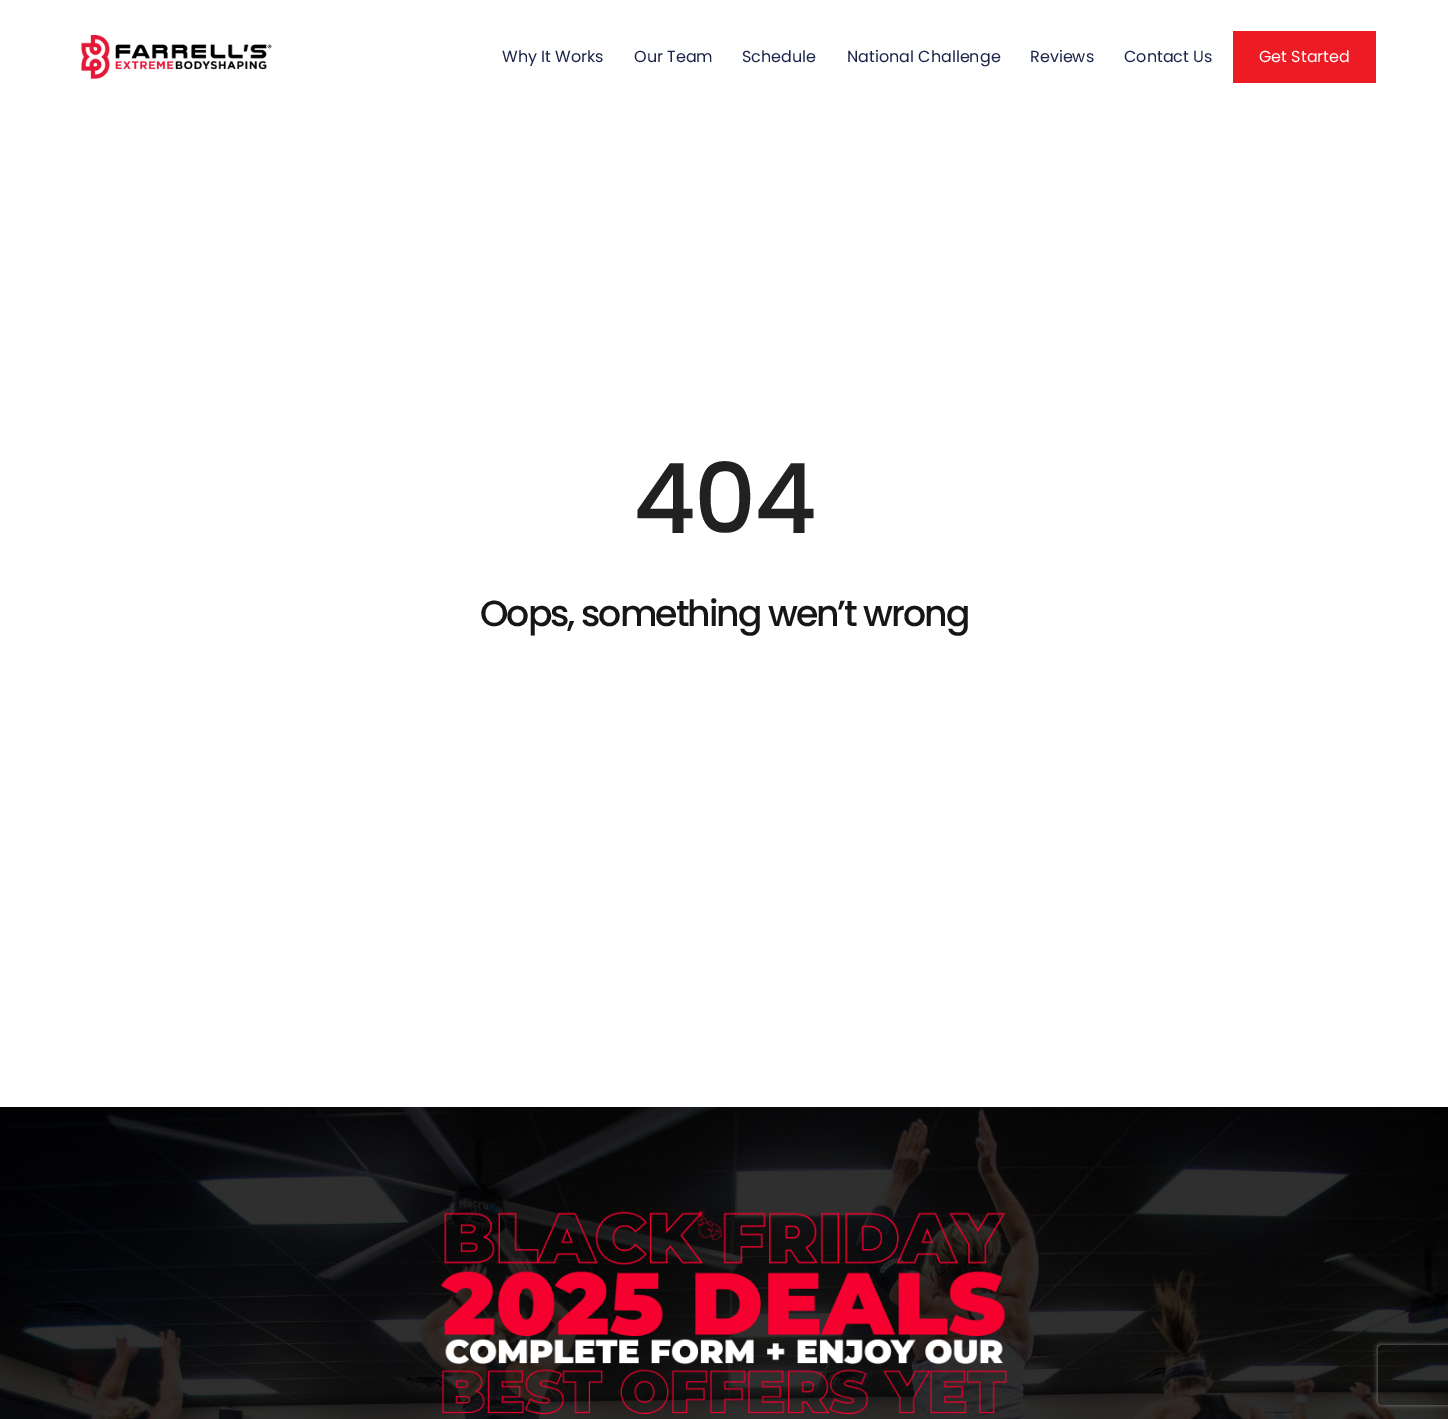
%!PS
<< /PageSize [1448 1419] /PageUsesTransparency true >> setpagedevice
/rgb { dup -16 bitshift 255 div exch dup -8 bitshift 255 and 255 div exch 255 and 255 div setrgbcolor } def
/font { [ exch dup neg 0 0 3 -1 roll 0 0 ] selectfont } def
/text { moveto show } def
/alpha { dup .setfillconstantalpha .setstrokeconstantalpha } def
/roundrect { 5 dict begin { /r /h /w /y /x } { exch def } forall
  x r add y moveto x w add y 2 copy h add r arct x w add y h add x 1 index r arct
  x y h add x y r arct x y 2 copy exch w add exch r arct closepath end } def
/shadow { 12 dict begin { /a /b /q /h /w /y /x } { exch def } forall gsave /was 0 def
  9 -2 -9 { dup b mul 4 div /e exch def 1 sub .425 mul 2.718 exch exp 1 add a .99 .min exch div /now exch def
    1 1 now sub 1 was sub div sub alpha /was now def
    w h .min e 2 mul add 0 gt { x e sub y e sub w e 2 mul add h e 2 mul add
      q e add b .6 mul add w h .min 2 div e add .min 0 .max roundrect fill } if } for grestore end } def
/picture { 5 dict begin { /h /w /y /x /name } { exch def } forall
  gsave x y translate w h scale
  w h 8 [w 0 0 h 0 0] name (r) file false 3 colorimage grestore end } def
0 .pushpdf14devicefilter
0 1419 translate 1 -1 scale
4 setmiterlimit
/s1 { /Poppins-Regular 16 font 16#1C244B rgb } def
/s2 { /Poppins-Regular 16 font 16#FFFFFF rgb } def
16#FFFFFF rgb
0 0 1448 1419 rectfill
(pic1.raw) 81 35 191 44 picture
s1
(Why It Works) 502 62 text
(Our Team) 634 62 text
(Schedule) 742 62 text
(National Challenge) 847 62 text
(Reviews) 1030 62 text
(Contact Us) 1124 62 text
16#ED1C24 rgb
1233 31 143 52 rectfill
s2
(Get Started) 1259 62 text
/Poppins-Medium 97 font
16#212121 rgb
633 533 moveto -2 0 (404) ashow
/Poppins-Medium 36.25 font
16#171515 rgb
480 626 moveto -2 0 (Oops, something wen’t wrong) ashow
(pic2.raw) 0 1107 1448 312 picture
(pic3.raw) 441 1210 566 205 picture
gsave
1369 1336 moveto 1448 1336 lineto 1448 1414 lineto 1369 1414 lineto closepath 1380 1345 moveto 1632 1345 lineto 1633 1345 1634 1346 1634 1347 curveto 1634 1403 lineto 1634 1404 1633 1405 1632 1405 curveto 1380 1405 lineto 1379 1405 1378 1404 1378 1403 curveto 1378 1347 lineto 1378 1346 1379 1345 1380 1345 curveto closepath eoclip newpath
16#808080 rgb
1378 1345 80 60 2 2.5 1 shadow
grestore
.poppdf14devicefilter showpage
